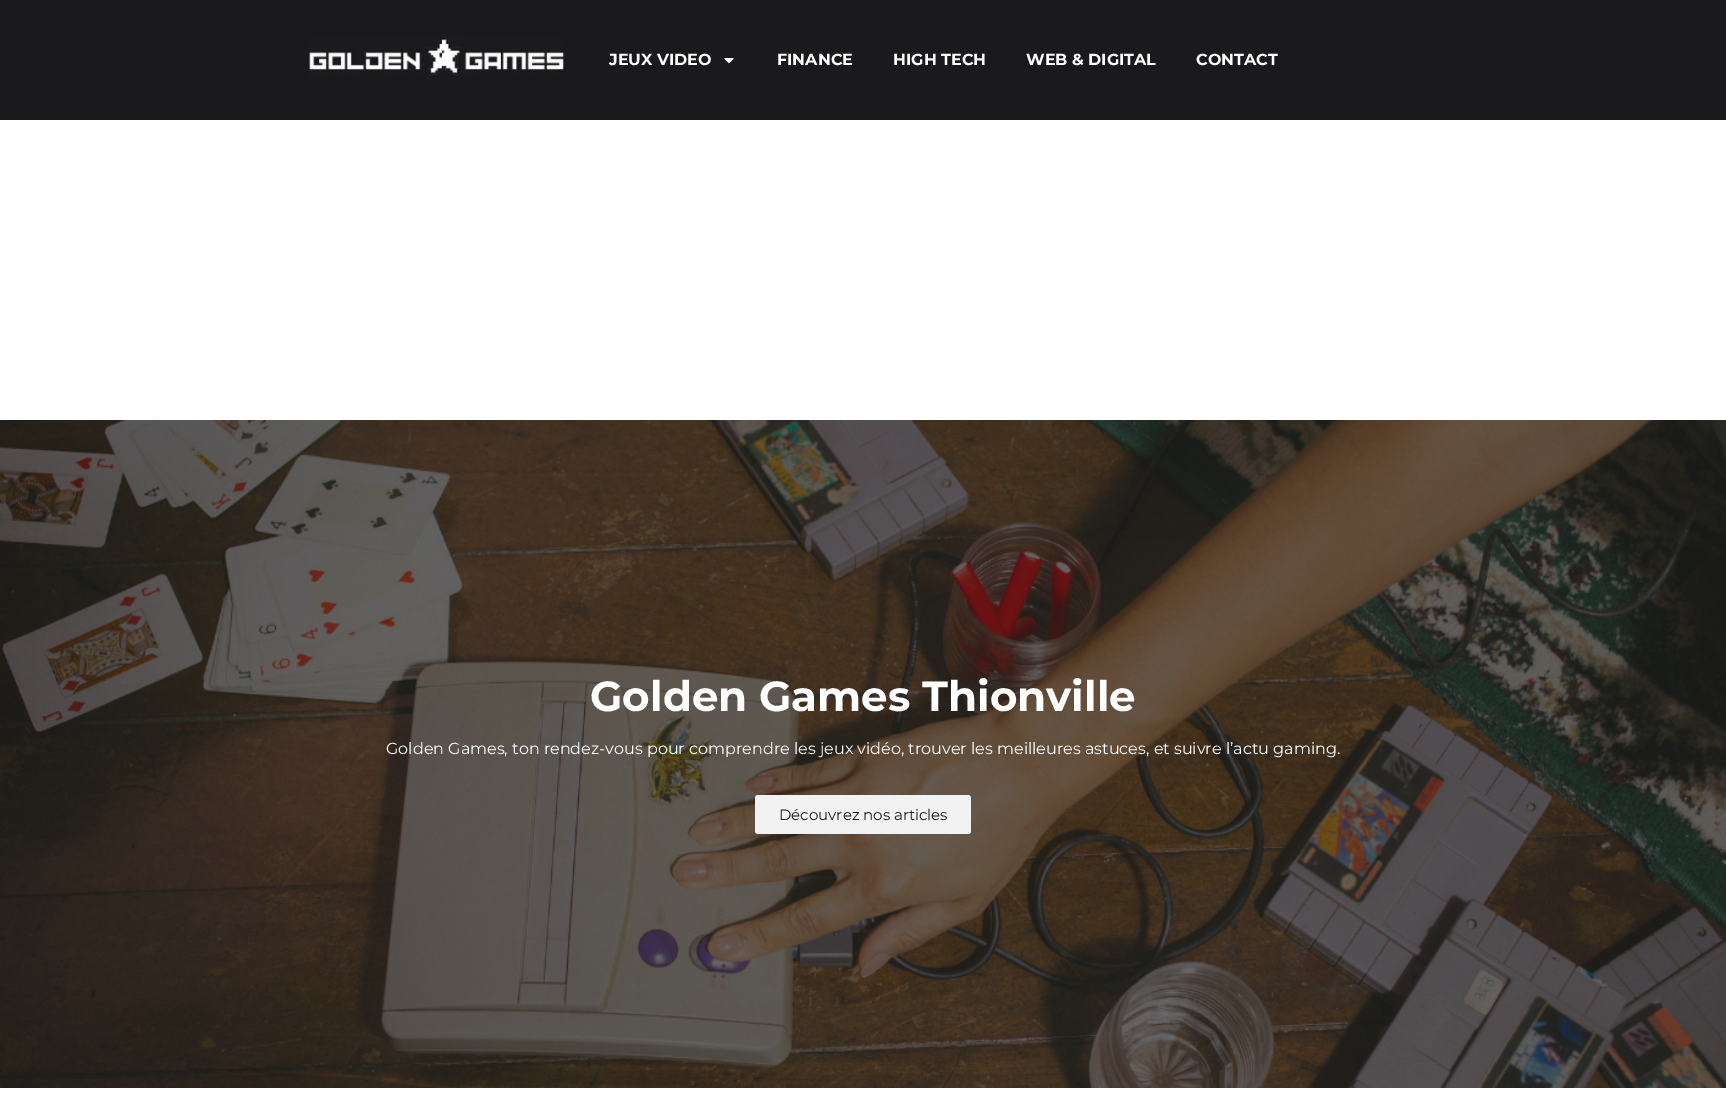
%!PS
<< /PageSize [1726 1114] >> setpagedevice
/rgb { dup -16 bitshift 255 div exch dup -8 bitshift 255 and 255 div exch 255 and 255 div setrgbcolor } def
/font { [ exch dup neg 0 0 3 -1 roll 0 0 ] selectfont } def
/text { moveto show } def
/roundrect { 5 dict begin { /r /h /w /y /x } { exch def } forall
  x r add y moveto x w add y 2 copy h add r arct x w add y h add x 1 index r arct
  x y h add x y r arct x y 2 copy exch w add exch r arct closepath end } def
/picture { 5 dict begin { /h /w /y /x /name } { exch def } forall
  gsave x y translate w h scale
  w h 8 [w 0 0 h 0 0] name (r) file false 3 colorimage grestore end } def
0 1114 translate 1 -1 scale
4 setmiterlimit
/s1 { /Montserrat-Bold 16 font 16#FFFFFF rgb } def
/s2 { /Montserrat-Bold 42 font 16#FFFFFF rgb } def
/s3 { /Montserrat-Regular 16 font 16#FFFFFF rgb } def
/s4 { /Montserrat-Regular 15 font 16#1A1A1D rgb } def
16#FFFFFF rgb
0 0 1726 1114 rectfill
16#1A1A1D rgb
0 0 1726 120 rectfill
(pic1.raw) 308 36 256 39 picture
s1
(JEUX VIDEO) 609 65 text
(pic2.raw) 724 58 10 6 picture
(FINANCE) 777 65 text
(HIGH TECH) 893 65 text
(WEB & DIGITAL) 1026 65 text
(CONTACT) 1196 65 text
(pic3.raw) 0 420 1726 668 picture
s2
(Golden Games Thionville) 590 711 text
s3
(Golden Games, ton rendez-vous pour comprendre les jeux vidéo, trouver les meilleures astuces, et suivre l’actu gaming.) 386 754 text
16#F2F2F2 rgb
755 795 216 39 3 roundrect fill
s4
(Découvrez nos articles) 779 820 text
showpage
